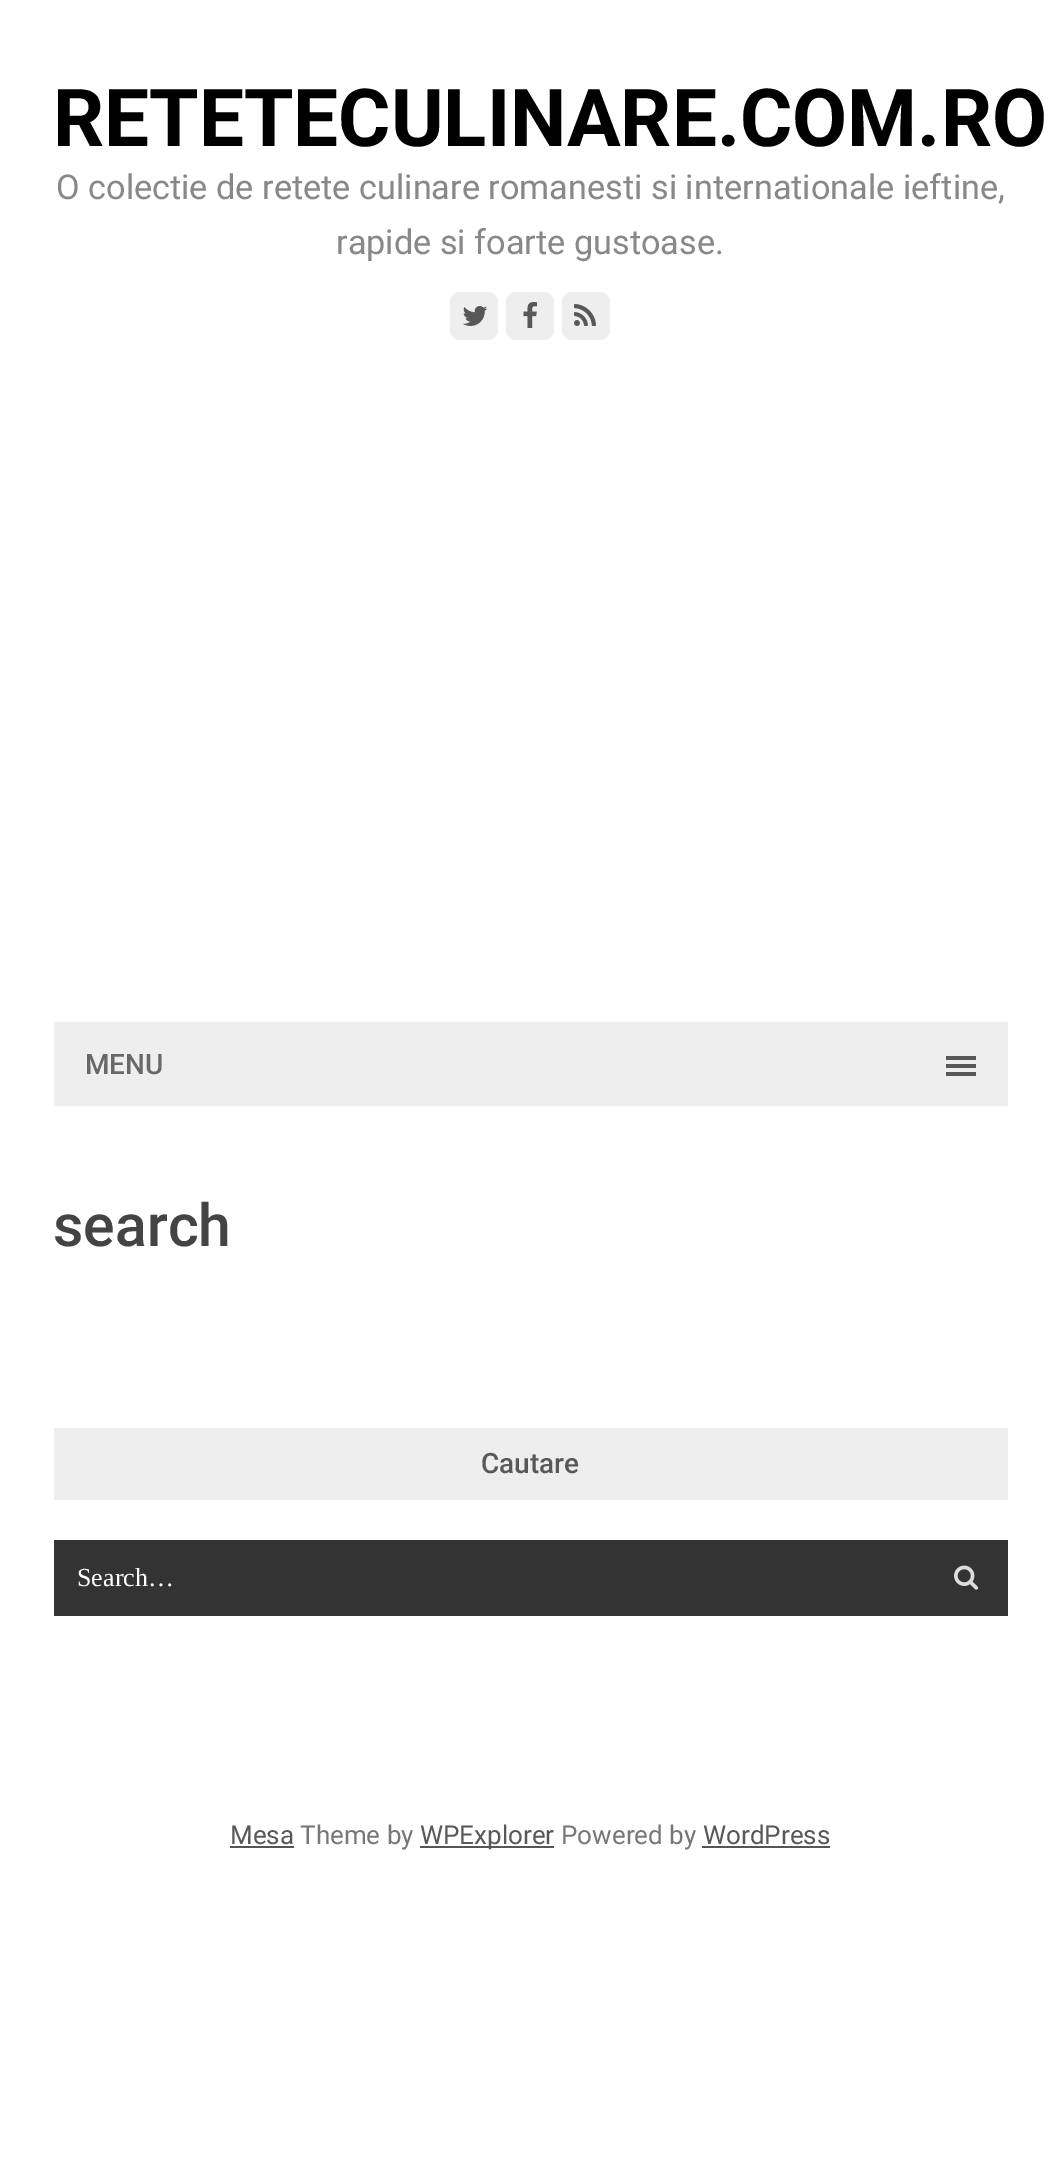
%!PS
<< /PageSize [1060 2159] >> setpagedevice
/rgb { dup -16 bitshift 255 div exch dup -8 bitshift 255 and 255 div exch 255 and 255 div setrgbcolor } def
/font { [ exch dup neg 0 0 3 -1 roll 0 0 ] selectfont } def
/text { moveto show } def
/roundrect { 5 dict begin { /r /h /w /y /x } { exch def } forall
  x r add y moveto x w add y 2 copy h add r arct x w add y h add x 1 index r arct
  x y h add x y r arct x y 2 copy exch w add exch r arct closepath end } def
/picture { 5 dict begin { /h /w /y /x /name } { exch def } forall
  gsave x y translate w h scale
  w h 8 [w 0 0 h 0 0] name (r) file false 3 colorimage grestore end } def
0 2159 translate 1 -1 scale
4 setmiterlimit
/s1 { /Roboto-Bold 80 font 16#000000 rgb } def
/s2 { /Roboto-Regular 34.25 font 16#888888 rgb } def
/s3 { /Roboto-Medium 28 font 16#686868 rgb } def
/s4 { /Roboto-Medium 59 font 16#444444 rgb } def
/s5 { /Roboto-Medium 28 font 16#585858 rgb } def
/s6 { /LiberationSerif-Regular 26 font 16#FFFFFF rgb } def
/s7 { /Roboto-Regular 26 font 16#585858 rgb } def
/s8 { /Roboto-Regular 26 font 16#777777 rgb } def
16#FFFFFF rgb
0 0 1060 2159 rectfill
s1
(RETETECULINARE.COM.RO) 53 146 text
s2
(O colectie de retete culinare romanesti si internationale) 56 199 text
(ieftine,) 903 199 text
(rapide si foarte gustoase.) 336 254 text
16#EEEEEE rgb
450 292 48 48 10 roundrect fill
(pic1.raw) 462 306 26 20 picture
506 292 48 48 10 roundrect fill
(pic2.raw) 523 302 14 26 picture
562 292 48 48 10 roundrect fill
(pic3.raw) 574 304 22 22 picture
54 1022 954 84 rectfill
s3
(MENU) 85 1074 text
16#585858 rgb
946 1056 30 4 rectfill
946 1064 30 4 rectfill
946 1072 30 4 rectfill
s4
(search) 53 1246 text
16#EEEEEE rgb
54 1428 954 72 rectfill
s5
(Cautare) 481 1473 text
16#333333 rgb
54 1540 954 76 rectfill
s6
(Search…) 77 1586 text
(pic4.raw) 954 1565 25 25 picture
s7
(Mesa) 230 1844 text
16#555555 rgb
230 1846 64 2 rectfill
s8
(Theme by) 300 1844 text
16#555555 rgb
420 1846 134 2 rectfill
s7
(WPExplorer) 420 1844 text
s8
(Powered by) 561 1844 text
s7
(WordPress) 703 1844 text
16#555555 rgb
702 1846 128 2 rectfill
showpage
